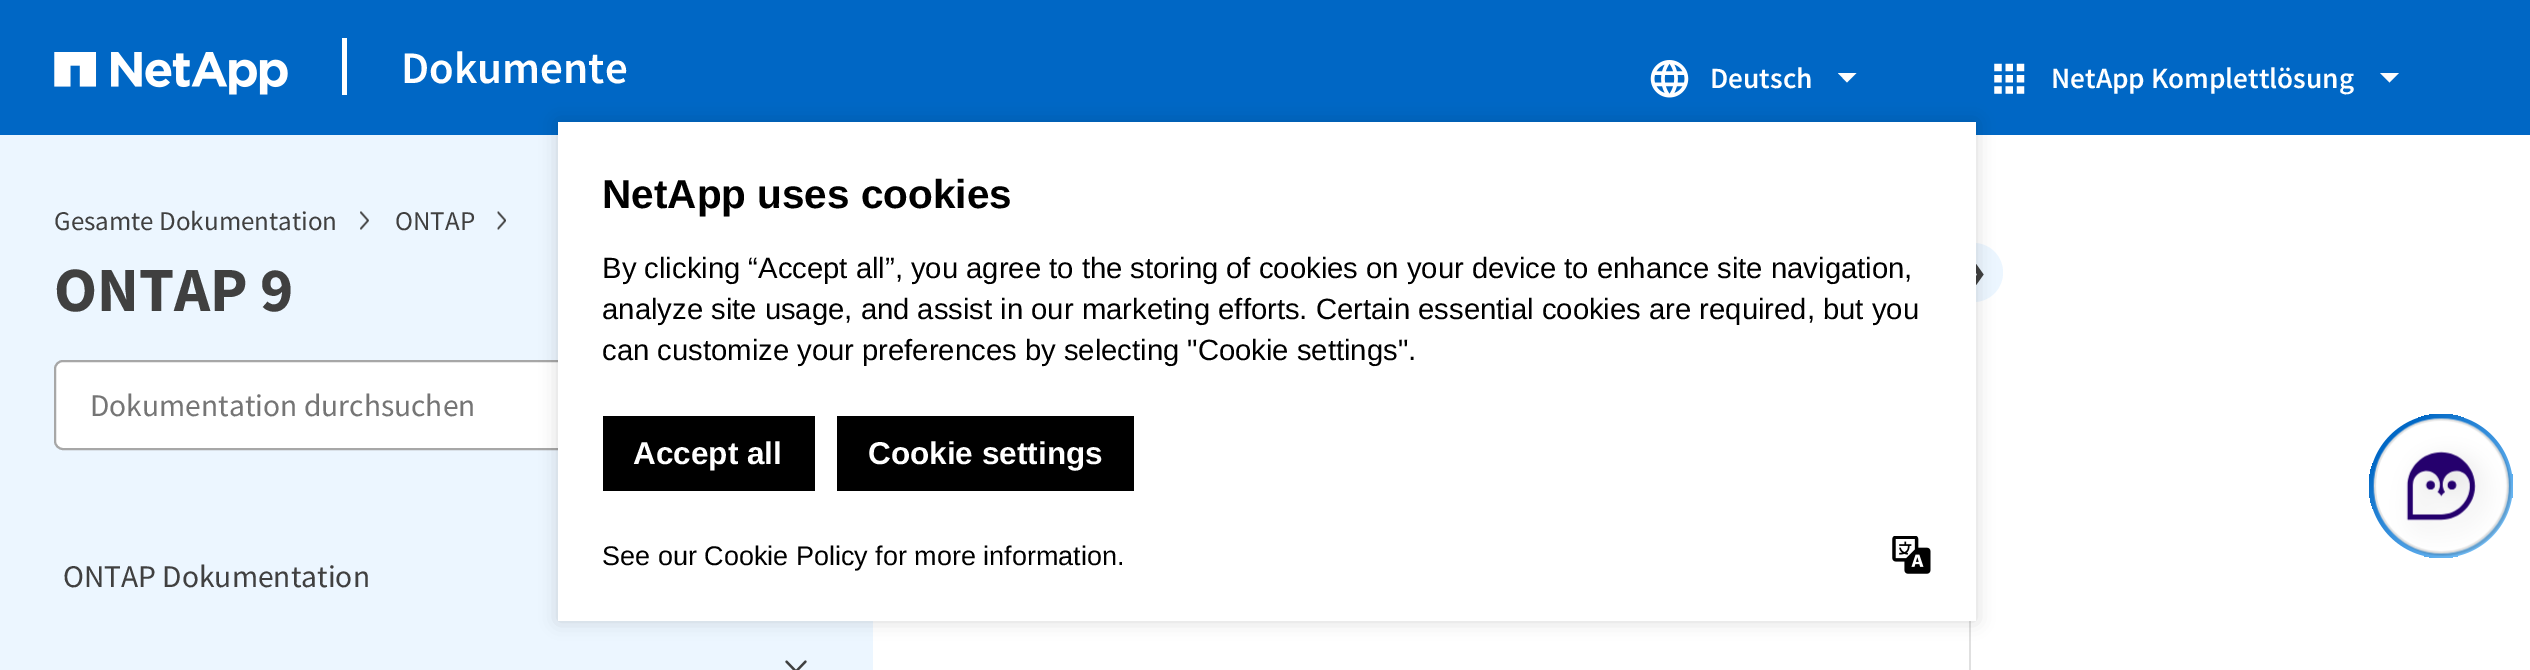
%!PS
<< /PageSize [2530 670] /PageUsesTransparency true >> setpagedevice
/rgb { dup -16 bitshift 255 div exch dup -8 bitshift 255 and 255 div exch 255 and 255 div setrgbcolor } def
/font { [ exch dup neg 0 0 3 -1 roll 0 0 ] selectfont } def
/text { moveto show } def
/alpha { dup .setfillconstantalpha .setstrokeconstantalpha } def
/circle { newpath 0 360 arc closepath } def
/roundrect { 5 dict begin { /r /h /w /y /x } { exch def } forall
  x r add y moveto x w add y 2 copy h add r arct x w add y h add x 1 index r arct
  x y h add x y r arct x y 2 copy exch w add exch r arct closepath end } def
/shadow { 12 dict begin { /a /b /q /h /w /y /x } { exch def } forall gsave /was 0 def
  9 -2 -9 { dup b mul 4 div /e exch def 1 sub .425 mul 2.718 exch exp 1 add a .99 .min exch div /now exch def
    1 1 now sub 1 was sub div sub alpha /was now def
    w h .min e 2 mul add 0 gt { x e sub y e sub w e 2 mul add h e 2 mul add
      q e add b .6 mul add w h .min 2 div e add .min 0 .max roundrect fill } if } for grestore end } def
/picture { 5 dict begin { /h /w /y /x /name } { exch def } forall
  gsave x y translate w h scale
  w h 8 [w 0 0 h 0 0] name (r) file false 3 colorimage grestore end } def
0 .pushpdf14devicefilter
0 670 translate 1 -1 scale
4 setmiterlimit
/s1 { /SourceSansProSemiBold-SemiBold 45 font 16#FFFFFF rgb } def
/s2 { /SourceSansProSemiBold-SemiBold 29.25 font 16#FFFFFF rgb } def
/s3 { /SourceSansPro-Regular 27 font 16#404040 rgb } def
/s4 { /SourceSansPro-Bold 63 font 16#404040 rgb } def
/s5 { /SourceSansPro-Regular 31.5 font 16#757575 rgb } def
/s6 { /SourceSansPro-Regular 31.5 font 16#404040 rgb } def
/s7 { /LiberationSans-Bold 40.5 font 16#000000 rgb } def
/s8 { /LiberationSans-Regular 29.25 font 16#000000 rgb } def
/s9 { /LiberationSans-Bold 31.5 font 16#FFFFFF rgb } def
/s10 { /LiberationSans-Regular 27 font 16#000000 rgb } def
16#FFFFFF rgb
0 0 2530 670 rectfill
16#0067C5 rgb
0 0 2530 135 rectfill
(pic1.raw) 54 52 234 43 picture
16#FFFFFF rgb
342 38 5 57 rectfill
s1
(Dokumente) 401 83 text
(pic2.raw) 1650 60 39 38 picture
s2
(Deutsch) 1710 88 text
16#FDFDFD rgb
1847 82.5 moveto 1838 73 lineto 1856.5 73 lineto closepath fill
(pic3.raw) 1994 63 31 31 picture
s2
(NetApp Komplettlösung) 2051 88 text
16#FDFDFD rgb
2389.5 82.5 moveto 2380 73 lineto 2399 73 lineto closepath fill
16#ECF6FF rgb
0 135 873 535 rectfill
s3
(Gesamte Dokumentation) 54 230 text
(pic4.raw) 360 211 9 19 picture
(ONTAP) 395 230 text
(pic5.raw) 497 211 9 19 picture
s4
(ONTAP 9) 54 311 text
16#FFFFFF rgb
55 361 763 88 8 roundrect gsave fill grestore
16#A7A7A7 rgb
2 setlinewidth
stroke
s5
(Dokumentation durchsuchen) 90 416 text
s6
(ONTAP Dokumentation) 63 587 text
(pic6.raw) 785 660 22 10 picture
16#E0E0E0 rgb
1969 621 2 49 rectfill
16#ECF6FF rgb
1973.5 272.5 29.5 circle fill
(pic7.raw) 1976 264 8 21 picture
gsave 2441 486 72 circle clip newpath
<< /ShadingType 2 /ColorSpace /DeviceRGB /Coords [2369 414 2513 558] /Extend [true true] /Function << /FunctionType 3 /Domain [0 1] /Functions [<< /FunctionType 2 /Domain [0 1] /C0 [0 0.404 0.773] /C1 [0 0.404 0.773] /N 1 >> << /FunctionType 2 /Domain [0 1] /C0 [0 0.404 0.773] /C1 [0.478 0.765 0.98] /N 1 >> << /FunctionType 2 /Domain [0 1] /C0 [0.478 0.765 0.98] /C1 [0.478 0.765 0.98] /N 1 >>] /Bounds [0.18 0.89] /Encode [0 1 0 1 0 1] >> >> shfill grestore
(pic8.raw) 2373 418 139 138 picture
16#000000 rgb
558 122 1418 499 0 9 0.15 shadow
16#FFFFFF rgb
558 122 1418 499 rectfill
s7
(NetApp uses cookies) 602 208 text
s8
(By clicking “Accept all”, you agree to the storing of cookies on your device to enhance site navigation,) 602 278 text
(analyze site usage, and assist in our marketing efforts. Certain essential cookies are required, but you) 602 319 text
(can customize your preferences by selecting "Cookie settings".) 602 360 text
603 416 212 75 rectfill
s9
(Accept all) 633 464 text
16#000000 rgb
837 416 297 75 rectfill
s9
(Cookie settings) 868 464 text
s10
(See our Cookie Policy for more information.) 602 565 text
(pic9.raw) 1892 536 39 38 picture
.poppdf14devicefilter showpage
